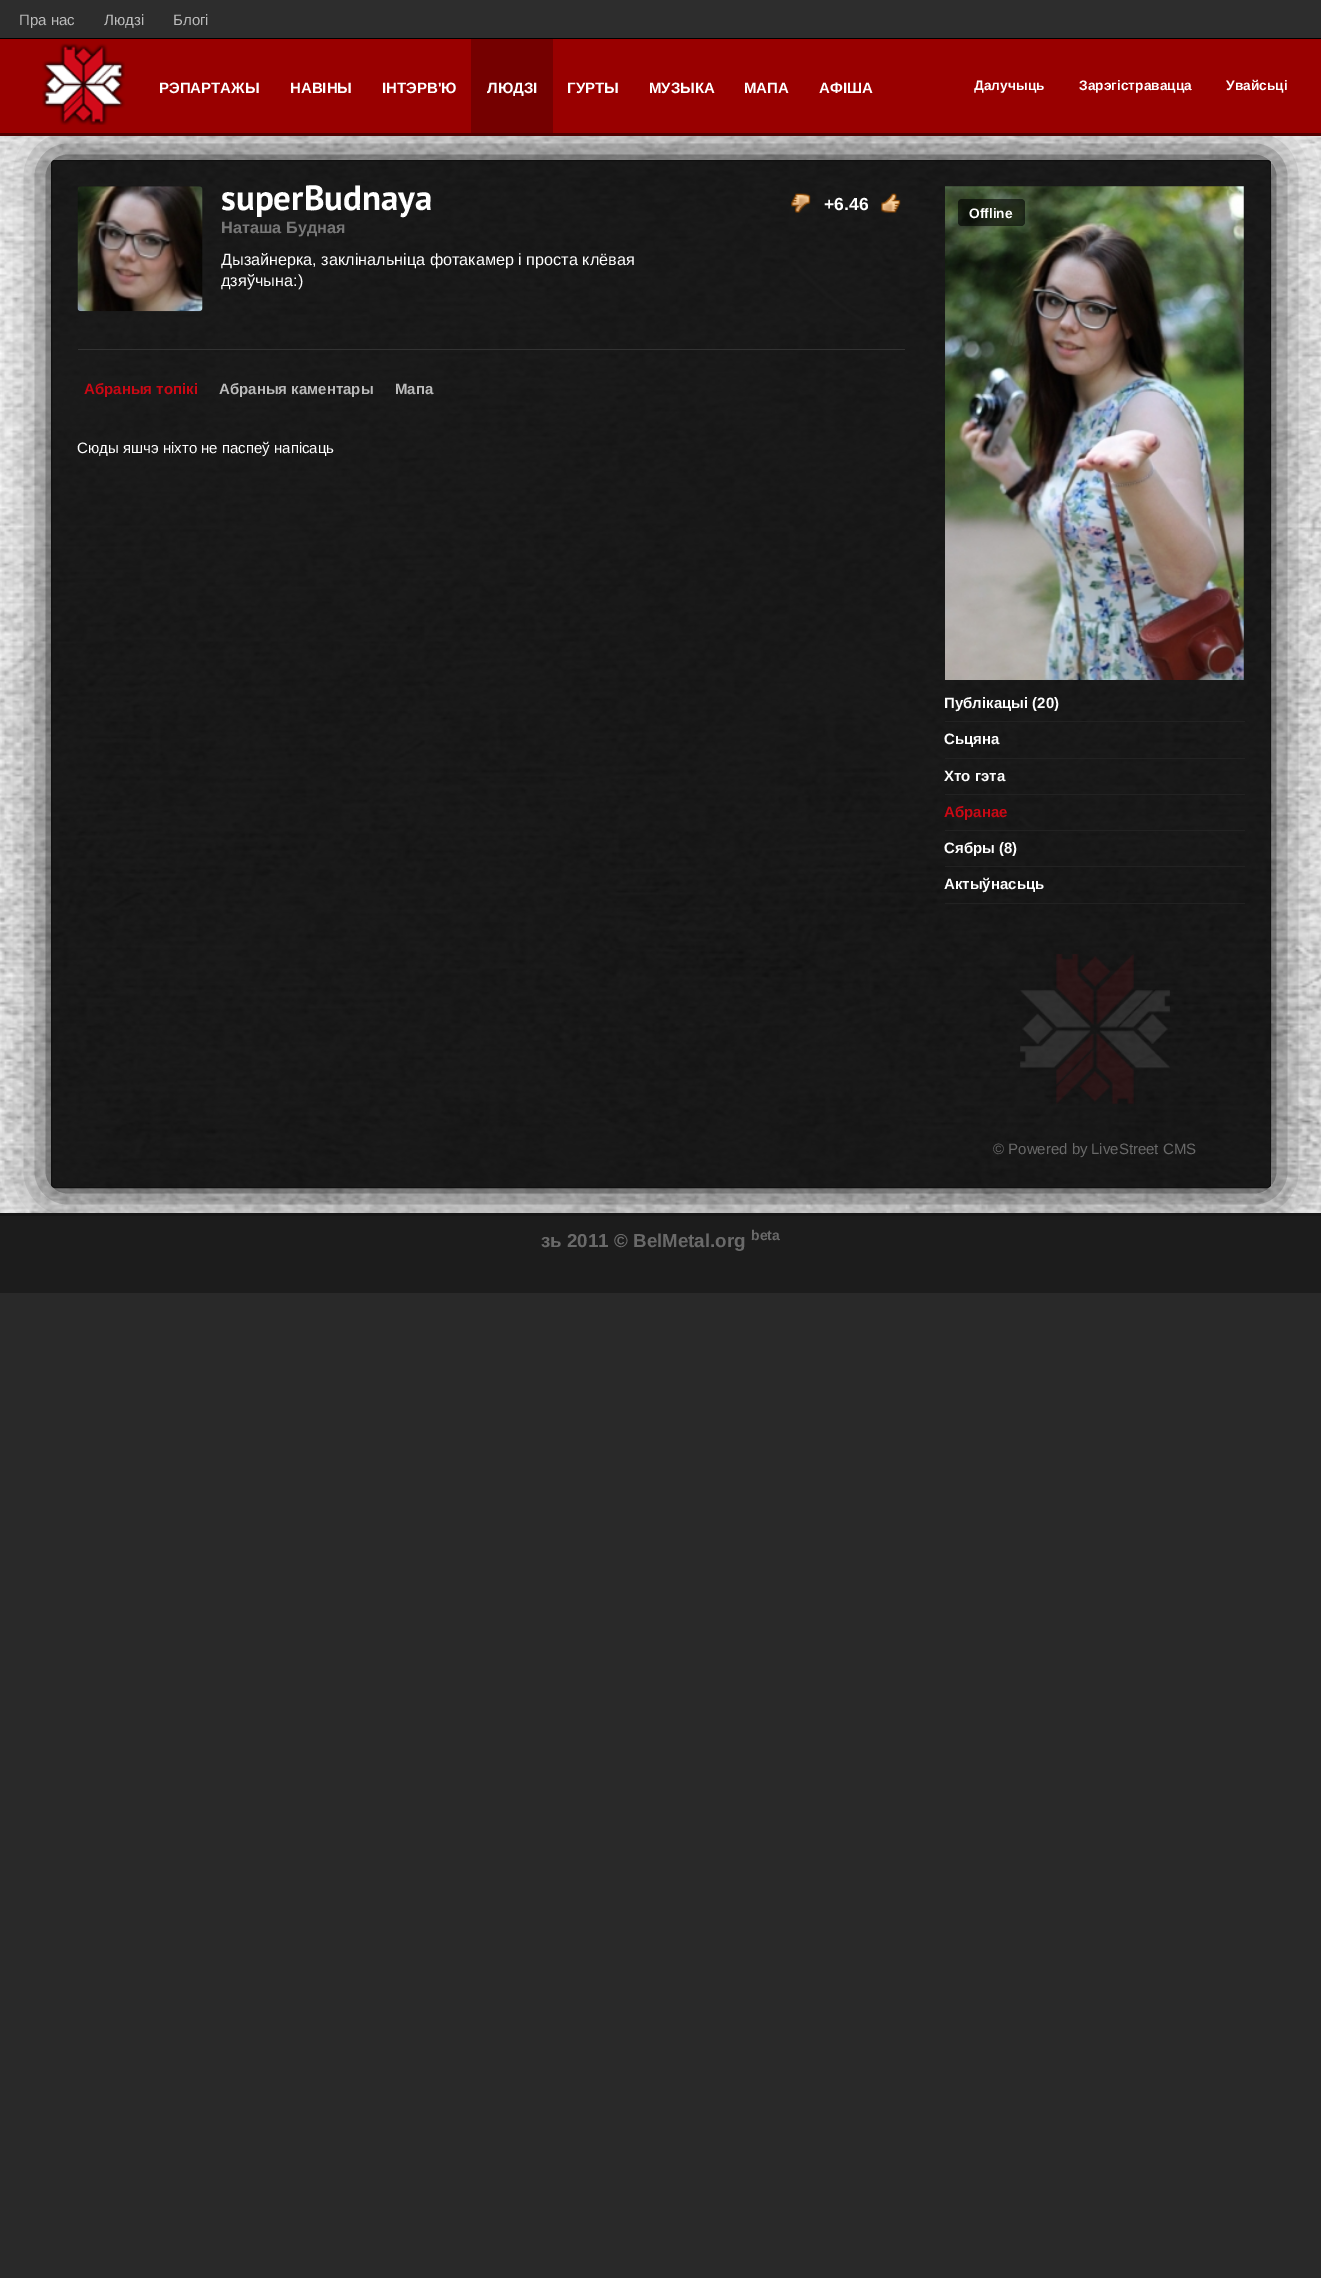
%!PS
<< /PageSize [1321 2278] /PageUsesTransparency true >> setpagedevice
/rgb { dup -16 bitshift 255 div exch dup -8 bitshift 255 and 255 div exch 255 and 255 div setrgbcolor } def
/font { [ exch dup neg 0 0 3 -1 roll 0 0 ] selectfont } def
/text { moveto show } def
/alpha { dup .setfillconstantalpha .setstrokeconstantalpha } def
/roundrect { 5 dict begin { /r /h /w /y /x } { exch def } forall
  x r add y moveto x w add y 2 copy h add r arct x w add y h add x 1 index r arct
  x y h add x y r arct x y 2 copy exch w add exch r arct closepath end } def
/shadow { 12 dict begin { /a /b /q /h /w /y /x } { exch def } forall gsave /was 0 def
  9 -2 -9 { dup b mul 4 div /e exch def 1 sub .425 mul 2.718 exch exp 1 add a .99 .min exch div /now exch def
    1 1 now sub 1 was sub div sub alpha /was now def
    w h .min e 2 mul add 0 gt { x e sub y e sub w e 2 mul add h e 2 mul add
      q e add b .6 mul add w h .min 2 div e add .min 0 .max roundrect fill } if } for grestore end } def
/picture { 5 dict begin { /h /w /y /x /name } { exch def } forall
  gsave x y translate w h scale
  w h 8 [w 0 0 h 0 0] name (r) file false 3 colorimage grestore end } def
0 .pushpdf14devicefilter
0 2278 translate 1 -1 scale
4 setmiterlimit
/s1 { /LiberationSans-Regular 15 font 16#BBBBBB rgb } def
/s2 { /LiberationSans-Bold 15 font 16#FFFFFF rgb } def
/s3 { /LiberationSans-Bold 13.75 font 16#FFFFFF rgb } def
/s4 { /PTSans-Bold 35 font 16#FFFFFF rgb } def
/s5 { /LiberationSans-Bold 16.25 font 16#777777 rgb } def
/s6 { /LiberationSans-Bold 17.5 font 16#FFFFFF rgb } def
/s7 { /LiberationSans-Regular 16.25 font 16#FFFFFF rgb } def
/s8 { /LiberationSans-Bold 15 font 16#CA0814 rgb } def
/s9 { /LiberationSans-Bold 15 font 16#BBBBBB rgb } def
/s10 { /LiberationSans-Regular 15 font 16#FFFFFF rgb } def
/s11 { /LiberationSans-Regular 15 font 16#696969 rgb } def
/s12 { /LiberationSans-Bold 18.75 font 16#696969 rgb } def
/s13 { /LiberationSans-Bold 14 font 16#696969 rgb } def
16#292929 rgb
0 0 1321 2278 rectfill
(pic1.raw) 0 136 1321 1077 picture
16#2D2D2D rgb
0 0 1321 38 rectfill
16#000000 rgb
0 38 1321 1 rectfill
s1
(Пра нас) 19 25 text
(Людзі) 104 25 text
(Блогі) 173 25 text
gsave
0 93 moveto 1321 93 lineto 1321 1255 lineto 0 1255 lineto closepath 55 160 moveto 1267 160 lineto 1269 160 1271 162 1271 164 curveto 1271 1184 lineto 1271 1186 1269 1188 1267 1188 curveto 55 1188 lineto 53 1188 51 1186 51 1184 curveto 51 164 lineto 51 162 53 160 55 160 curveto closepath eoclip newpath
16#101010 rgb
51 160 1220 1028 4 22 1 shadow
grestore
16#990000 rgb
0 39 1321 94 rectfill
16#500000 rgb
0 133 1321 3 rectfill
(pic2.raw) 42 43 83 82 picture
s2
(РЭПАРТАЖЫ) 159 93 text
(НАВІНЫ) 290 93 text
(ІНТЭРВ'Ю) 382 93 text
16#750000 rgb
471 39 82 94 rectfill
s2
(ЛЮДЗІ) 487 93 text
(ГУРТЫ) 567 93 text
(МУЗЫКА) 649 93 text
(МАПА) 744 93 text
(АФІША) 819 93 text
s3
(Далучыць) 974 90 text
(Зарэгістравацца) 1079 90 text
(Увайсьці) 1226 90 text
(pic3.raw) 51 160 1221 1028 picture
16#101010 rgb
51.5 160.5 1219 1027 3.5 roundrect stroke
16#333333 rgb
78 349 827 1 rectfill
(pic4.raw) 77 186 126 126 picture
s4
(superBudnaya) 221 210 text
s5
(Наташа Будная) 221 233 text
(pic5.raw) 791 193 20 20 picture
s6
(+6.46) 824 210 text
(pic6.raw) 881 193 20 20 picture
s7
(Дызайнерка, заклінальніца фотакамер і проста клёвая) 221 265 text
(дзяўчына:\)) 221 286 text
s8
(Абраныя топікі) 84 394 text
s9
(Абраныя каментары) 219 394 text
(Мапа) 395 394 text
s10
(Сюды яшчэ ніхто не паспеў напісаць) 77 453 text
(pic7.raw) 945 186 299 494 picture
0.61 alpha
16#000000 rgb
958 199 67 27 4 roundrect fill
1 alpha
s3
(Offline) 969 218 text
16#222222 rgb
945 721 300 1 rectfill
s2
(Публікацыі \(20\)) 944 708 text
16#222222 rgb
945 758 300 1 rectfill
s2
(Сьцяна) 944 744 text
16#222222 rgb
945 794 300 1 rectfill
s2
(Хто гэта) 944 781 text
16#222222 rgb
945 830 300 1 rectfill
s8
(Абранае) 944 817 text
16#222222 rgb
945 866 300 1 rectfill
s2
(Сябры \(8\)) 944 853 text
16#222222 rgb
945 903 300 1 rectfill
s2
(Актыўнасьць) 944 889 text
(pic8.raw) 1020 954 150 150 picture
s11
(© Powered by) 993 1154 text
(LiveStreet CMS) 1091 1154 text
16#1C1C1C rgb
0 1216 1321 77 rectfill
16#151515 rgb
0 1213 1321 3 rectfill
s12
(зь 2011) 541 1247 text
(© BelMetal.org) 614 1247 text
s13
(beta) 751 1240 text
.poppdf14devicefilter showpage
